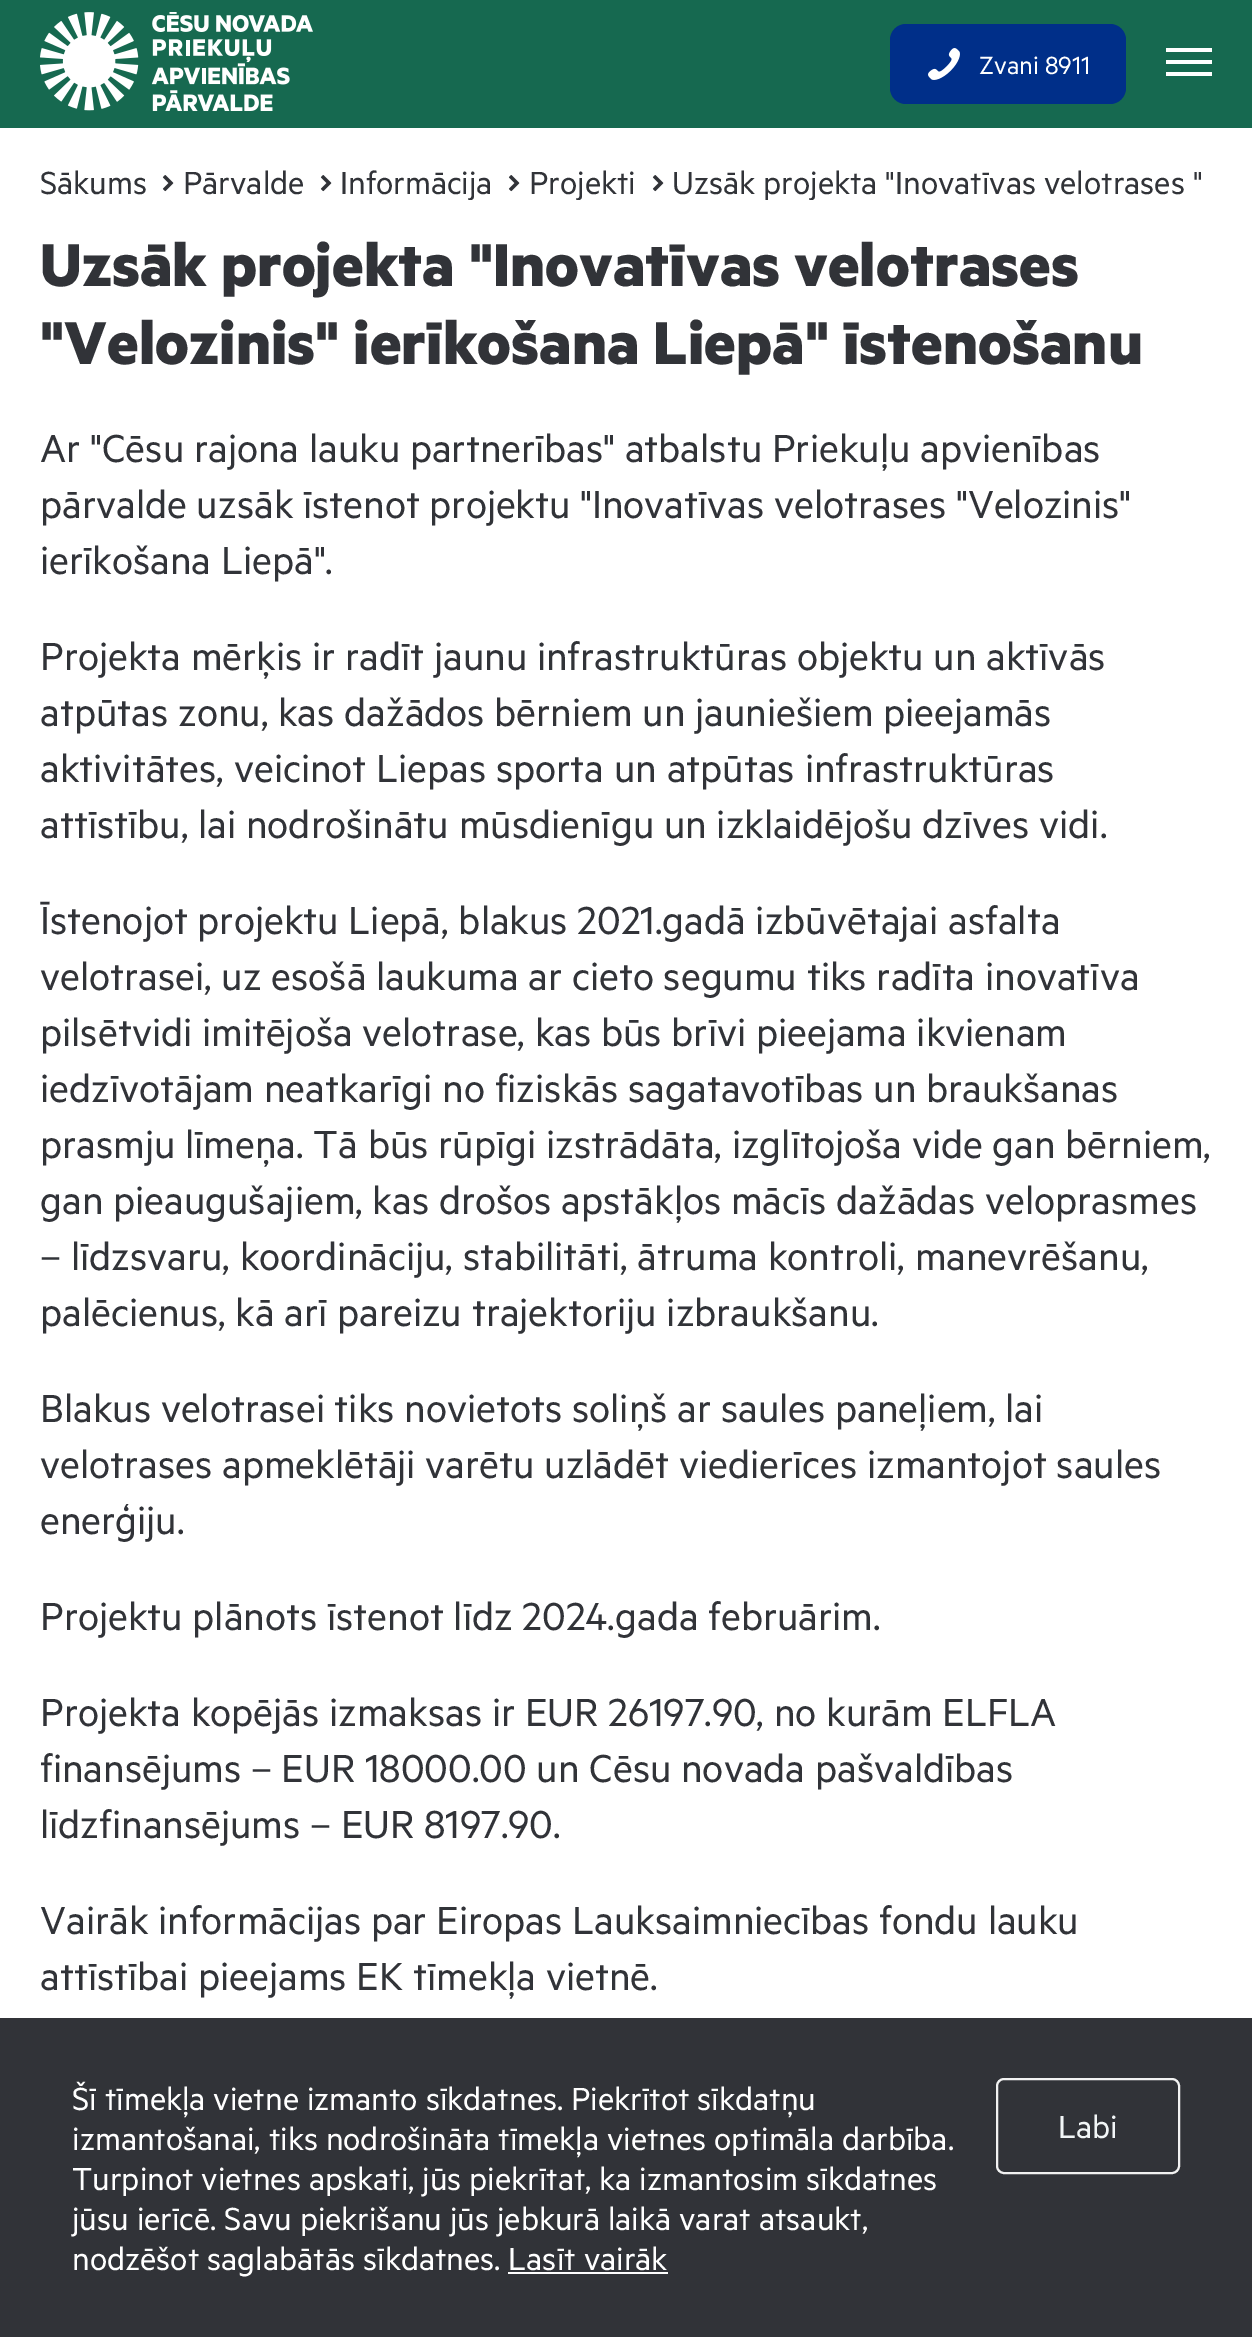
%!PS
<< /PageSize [1252 2337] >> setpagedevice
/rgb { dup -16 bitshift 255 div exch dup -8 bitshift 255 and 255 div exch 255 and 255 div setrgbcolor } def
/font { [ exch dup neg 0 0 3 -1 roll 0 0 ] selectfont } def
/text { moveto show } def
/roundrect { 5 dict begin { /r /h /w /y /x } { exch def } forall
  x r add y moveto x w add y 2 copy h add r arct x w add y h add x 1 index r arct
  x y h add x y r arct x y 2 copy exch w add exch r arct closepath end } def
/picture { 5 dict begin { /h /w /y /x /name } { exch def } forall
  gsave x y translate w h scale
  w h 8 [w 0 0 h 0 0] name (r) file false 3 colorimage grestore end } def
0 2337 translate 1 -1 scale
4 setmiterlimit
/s1 { /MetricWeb-Regular 28 font 16#FFFFFF rgb } def
/s2 { /MetricWeb-Regular 36 font 16#313338 rgb } def
/s3 { /MetricWeb-Bold 68 font 16#313338 rgb } def
/s4 { /MetricWeb-Regular 44 font 16#313338 rgb } def
/s5 { /MetricWeb-Regular 36 font 16#FFFFFF rgb } def
/s6 { /MetricWeb-Regular 36 font 16#F2F6F7 rgb } def
16#FFFFFF rgb
0 0 1252 2337 rectfill
16#166950 rgb
0 0 1252 128 rectfill
(pic1.raw) 40 12 273 99 picture
16#002F89 rgb
890 24 236 80 16 roundrect fill
(pic2.raw) 928 48 32 32 picture
s1
(Zvani 8911) 979 74 text
1166 48 46 4 rectfill
1166 60 46 4 rectfill
1166 72 46 4 rectfill
s2
(Sākums) 40 194 text
(pic3.raw) 162 175 12 17 picture
(Pārvalde) 183 194 text
(pic3.raw) 320 175 12 17 picture
gsave
40 164 1172 36 rectclip
(Informācija) 340 194 text
grestore
(pic3.raw) 508 175 12 17 picture
gsave
40 164 1172 36 rectclip
(Projekti) 529 194 text
grestore
(pic3.raw) 652 175 12 17 picture
gsave
40 164 1172 36 rectclip
(Uzsāk projekta "Inovatīvas velotrases ") 672 194 text
grestore
s3
(Uzsāk projekta "Inovatīvas velotrases) 40 286 text
("Velozinis" ierīkošana Liepā" īstenošanu) 40 364 text
s4
(Ar "Cēsu rajona lauku partnerības" atbalstu Priekuļu apvienības) 40 462 text
(pārvalde uzsāk īstenot projektu "Inovatīvas velotrases "Velozinis") 40 518 text
(ierīkošana Liepā".) 40 574 text
(Projekta mērķis ir radīt jaunu infrastruktūras objektu un aktīvās) 40 670 text
(atpūtas zonu, kas dažādos bērniem un jauniešiem pieejamās) 40 726 text
(aktivitātes, veicinot Liepas sporta un atpūtas infrastruktūras) 40 782 text
(attīstību, lai nodrošinātu mūsdienīgu un izklaidējošu dzīves vidi.) 40 838 text
(Īstenojot projektu Liepā, blakus 2021.gadā izbūvētajai asfalta) 40 934 text
(velotrasei, uz esošā laukuma ar cieto segumu tiks radīta inovatīva) 40 990 text
(pilsētvidi imitējoša velotrase, kas būs brīvi pieejama ikvienam) 40 1046 text
(iedzīvotājam neatkarīgi no fiziskās sagatavotības un braukšanas) 40 1102 text
(prasmju līmeņa. Tā būs rūpīgi izstrādāta, izglītojoša vide gan bērniem,) 40 1158 text
(gan pieaugušajiem, kas drošos apstākļos mācīs dažādas veloprasmes) 40 1214 text
(– līdzsvaru, koordināciju, stabilitāti, ātruma kontroli, manevrēšanu,) 40 1270 text
(palēcienus, kā arī pareizu trajektoriju izbraukšanu.) 40 1326 text
(Blakus velotrasei tiks novietots soliņš ar saules paneļiem, lai) 40 1422 text
(velotrases apmeklētāji varētu uzlādēt viedierīces izmantojot saules) 40 1478 text
(enerģiju.) 40 1534 text
(Projektu plānots īstenot līdz 2024.gada februārim.) 40 1630 text
(Projekta kopējās izmaksas ir EUR 26197.90, no kurām ELFLA) 40 1726 text
(finansējums – EUR 18000.00 un Cēsu novada pašvaldības) 40 1782 text
(līdzfinansējums – EUR 8197.90.) 40 1838 text
(Vairāk informācijas par Eiropas Lauksaimniecības fondu lauku) 40 1934 text
(attīstībai pieejams EK tīmekļa vietnē.) 40 1990 text
0 2018 1252 319 rectfill
s5
(Šī tīmekļa vietne izmanto sīkdatnes. Piekrītot sīkdatņu) 72 2110 text
(izmantošanai, tiks nodrošināta tīmekļa vietnes optimāla darbība.) 72 2150 text
(Turpinot vietnes apskati, jūs piekrītat, ka izmantosim sīkdatnes) 72 2190 text
(jūsu ierīcē. Savu piekrišanu jūs jebkurā laikā varat atsaukt,) 72 2230 text
(nodzēšot saglabātās sīkdatnes. Lasīt vairāk) 72 2270 text
508 2272 160 2 rectfill
16#F2F2F2 rgb
2 setlinewidth
997 2079 182 94 7 roundrect stroke
s6
(Labi) 1058 2138 text
showpage
